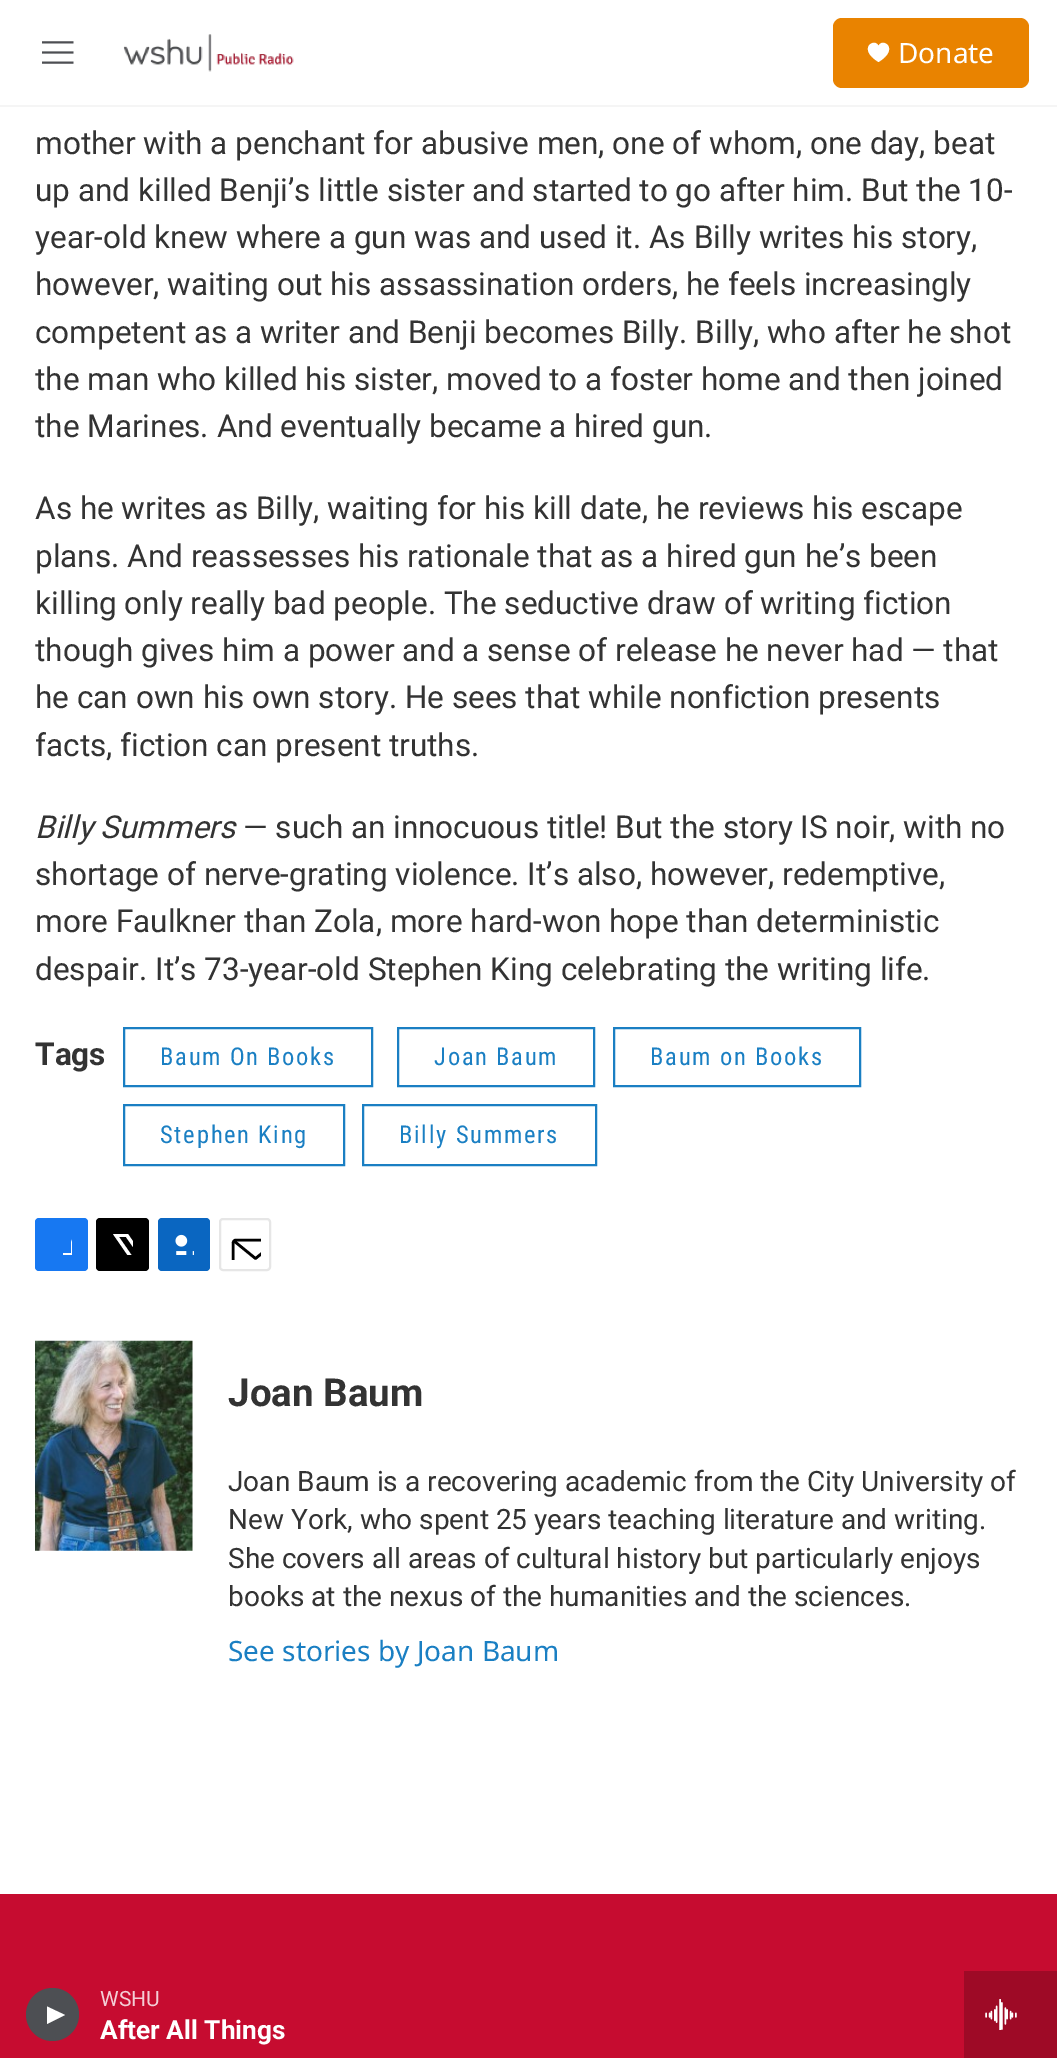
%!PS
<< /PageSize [1057 2058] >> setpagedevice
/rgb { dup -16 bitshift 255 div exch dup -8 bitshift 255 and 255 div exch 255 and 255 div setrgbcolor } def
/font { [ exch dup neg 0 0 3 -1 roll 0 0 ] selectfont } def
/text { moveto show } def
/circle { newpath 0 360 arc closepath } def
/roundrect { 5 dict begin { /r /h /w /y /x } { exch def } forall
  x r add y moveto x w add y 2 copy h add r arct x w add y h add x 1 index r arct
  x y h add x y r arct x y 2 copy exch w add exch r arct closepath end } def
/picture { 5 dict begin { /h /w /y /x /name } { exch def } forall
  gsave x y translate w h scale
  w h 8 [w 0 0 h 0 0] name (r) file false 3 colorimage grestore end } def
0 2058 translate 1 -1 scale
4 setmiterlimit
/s1 { /NotoSans-Regular 28 font 16#FFFFFF rgb } def
/s2 { /Roboto-Regular 21 font 16#F4CED6 rgb } def
/s3 { /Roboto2-Bold 26.25 font 16#FFFFFF rgb } def
/s4 { /Roboto-Regular 31.5 font 16#333333 rgb } def
/s5 { /Roboto-Italic 31.5 font 16#333333 rgb } def
/s6 { /Roboto-Bold 31.5 font 16#333333 rgb } def
/s7 { /Roboto-Bold 38.5 font 16#333333 rgb } def
/s8 { /Roboto-Regular 28 font 16#333333 rgb } def
/s9 { /NotoSans-Regular 28 font 16#1A7FC3 rgb } def
16#FFFFFF rgb
0 0 1057 2058 rectfill
16#F5F5F5 rgb
0 105 1057 2 rectfill
(pic1.raw) 42 41 32 23 picture
(pic2.raw) 123 34 171 38 picture
16#E98300 rgb
833 18 196 70 9 roundrect fill
16#FFFFFF rgb
878.5 46 moveto 875 37 856.5 48.5 878.5 62 curveto 900.5 48.5 882 37 878.5 46 curveto closepath fill
s1
(Donate) 898 63 text
16#C60C30 rgb
0 1971 964 87 rectfill
16#4D4F53 rgb
52.5 2014.5 26.5 circle fill
16#FFFFFF rgb
47 2006.5 moveto 65 2015 lineto 47 2024 lineto closepath fill
s2
(WSHU) 100 2006 text
s3
(After All Things) 100 2039 text
16#9E0A26 rgb
964 1971 93 87 rectfill
(pic3.raw) 985 1999 32 31 picture
s4
(mother with a penchant for abusive men, one of whom, one day, beat) 35 154 text
(up and killed Benji’s little sister and started to go after him. But the 10-) 35 201 text
(year-old knew where a gun was and used it. As Billy writes his story,) 35 248 text
(however, waiting out his assassination orders, he feels increasingly) 35 295 text
(competent as a writer and Benji becomes Billy. Billy, who after he shot) 35 343 text
(the man who killed his sister, moved to a foster home and then joined) 35 390 text
(the Marines. And eventually became a hired gun.) 35 437 text
(As he writes as Billy, waiting for his kill date, he reviews his escape) 35 519 text
(plans. And reassesses his rationale that as a hired gun he’s been) 35 567 text
(killing only really bad people. The seductive draw of writing fiction) 35 614 text
(though gives him a power and a sense of release he never had — that) 35 661 text
(he can own his own story. He sees that while nonfiction presents) 35 708 text
(facts, fiction can present truths.) 35 756 text
s5
(Billy Summers) 35 838 text
s4
(— such an innocuous title! But the story IS noir, with no) 243 838 text
(shortage of nerve-grating violence. It’s also, however, redemptive,) 35 885 text
(more Faulkner than Zola, more hard-won hope than deterministic) 35 932 text
(despair. It’s 73-year-old Stephen King celebrating the writing life.) 35 980 text
s6
(Tags) 35 1065 text
16#1A7FC3 rgb
2 setlinewidth
124 1028 248 58 rectstroke
/RobotoCondensed-Regular 24.5 font
160 1065 moveto 1.75 0 (Baum On Books) ashow
398 1028 196 58 rectstroke
434 1065 moveto 1.75 0 (Joan Baum) ashow
614 1028 246 58 rectstroke
650 1065 moveto 1.75 0 (Baum on Books) ashow
124 1105 220 60 rectstroke
160 1143 moveto 1.75 0 (Stephen King) ashow
363 1105 233 60 rectstroke
399 1143 moveto 1.75 0 (Billy Summers) ashow
16#1778F2 rgb
35 1218 53 53 4 roundrect fill
gsave
51 1234 21 21 rectclip
16#FFFFFF rgb
80 1271 moveto 71 1271 lineto 71 1262 lineto 63 1262 lineto 63 1253 lineto 71 1253 lineto 71 1243 lineto 72 1234.5 80.5 1234 88 1235 curveto 88 1243 lineto 78.5 1243 80 1244.5 80 1253 curveto 88 1253 lineto 87 1262 lineto 80 1262 lineto closepath fill
grestore
16#000000 rgb
96 1218 53 53 4 roundrect fill
gsave
112 1234 21 21 rectclip
16#FFFFFF rgb
143 1256 moveto 149 1264.5 lineto 149 1266 149 1268 148.5 1269 curveto 126 1237 lineto 119 1237 lineto 142.5 1271 lineto 138.5 1271 lineto 135 1266 lineto 130.5 1271 lineto 126 1271 lineto 133 1263 lineto 113 1234 lineto 128 1234 lineto 141 1253 lineto 149 1244 lineto 149 1249 lineto closepath fill
grestore
16#0A66C1 rgb
158 1218 52 53 4 roundrect fill
(pic4.raw) 175 1234 19 21 picture
16#E6E6E6 rgb
220 1219 50 51 3 roundrect stroke
gsave
229 1229 32 31 rectclip
16#000000 rgb
2.6 setlinewidth
1 setlinecap
1 setlinejoin
278 1267 moveto 278 1268.5 276.5 1270 275 1270 curveto 236 1270 lineto 234.5 1270 233 1268.5 233 1267 curveto 233 1243.5 lineto 233 1241.5 234.5 1240 236 1240 curveto 275 1240 lineto 276.5 1240 278 1241.5 278 1243.5 curveto closepath 277 1241 moveto 255.5 1258.5 lineto 234 1241 lineto stroke
grestore
(pic5.raw) 35 1340 158 211 picture
s7
(Joan Baum) 228 1406 text
s8
(Joan Baum is a recovering academic from the City University of) 228 1491 text
(New York, who spent 25 years teaching literature and writing.) 228 1529 text
(She covers all areas of cultural history but particularly enjoys) 228 1568 text
(books at the nexus of the humanities and the sciences.) 228 1606 text
s9
(See stories by Joan Baum) 228 1661 text
16#C60C30 rgb
0 1894 1057 77 rectfill
showpage
